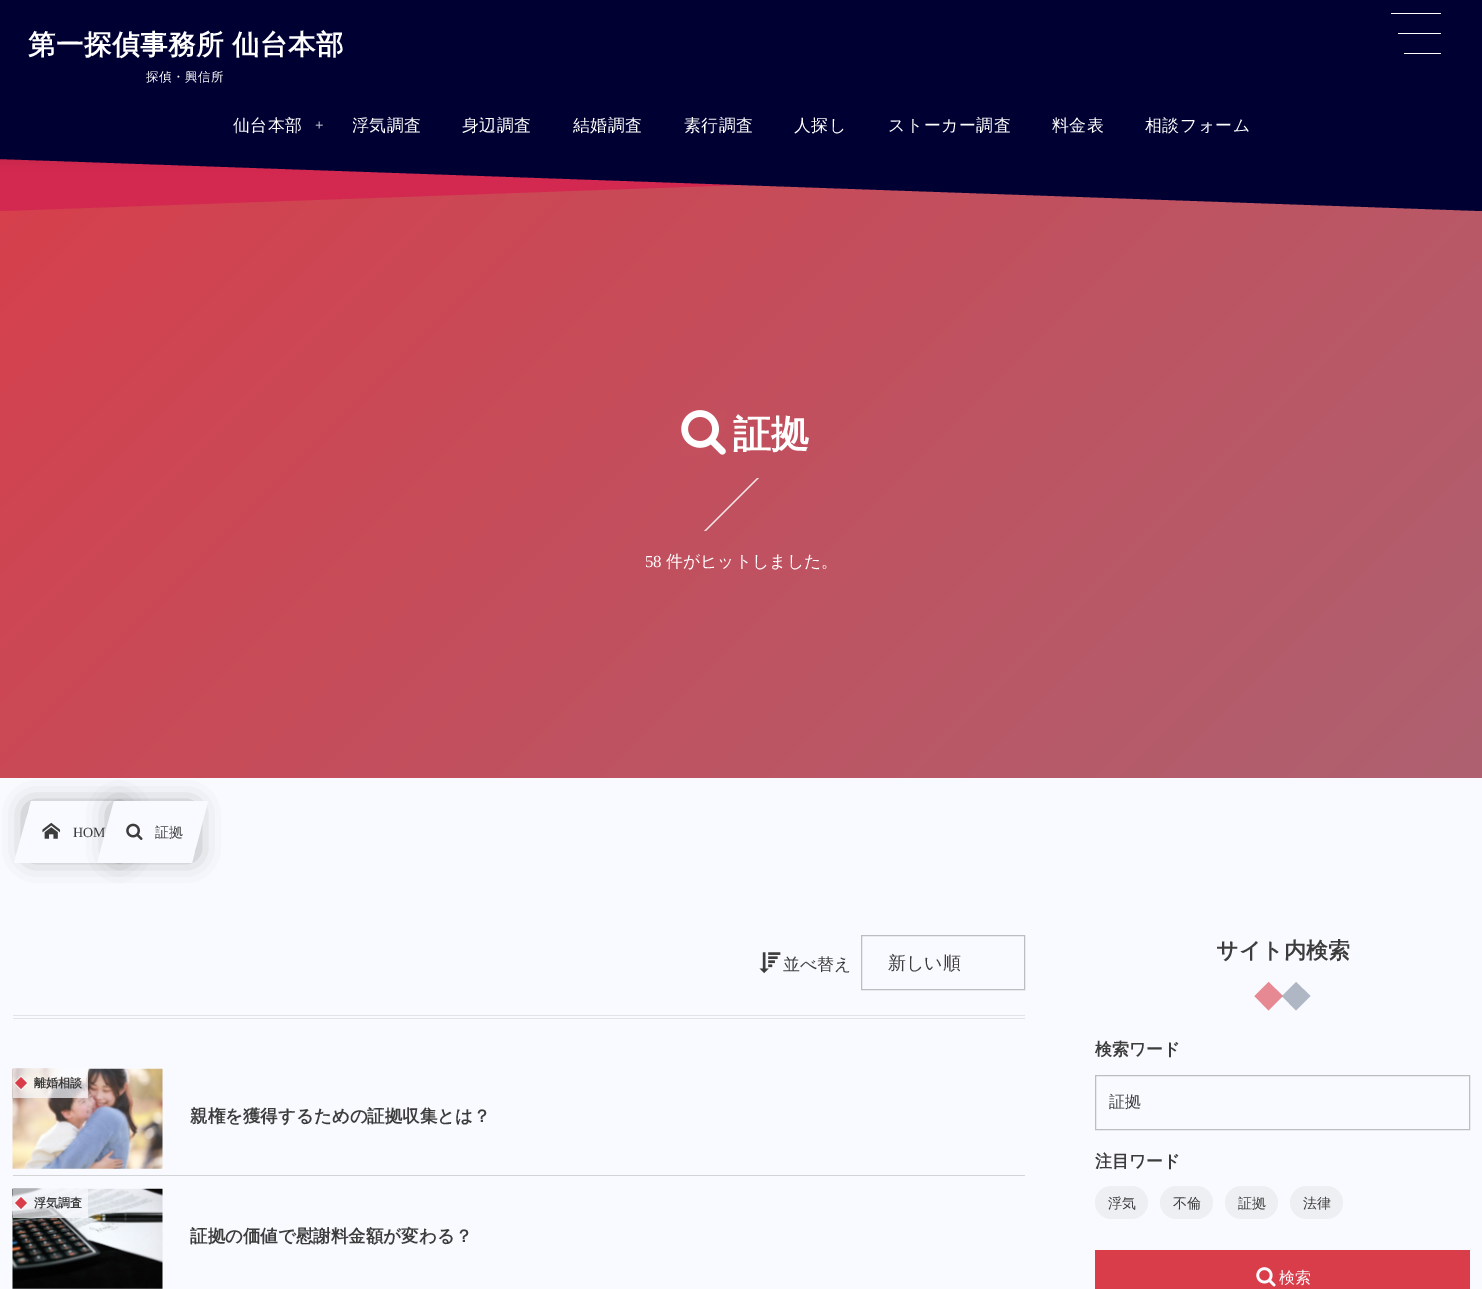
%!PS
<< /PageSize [1482 1289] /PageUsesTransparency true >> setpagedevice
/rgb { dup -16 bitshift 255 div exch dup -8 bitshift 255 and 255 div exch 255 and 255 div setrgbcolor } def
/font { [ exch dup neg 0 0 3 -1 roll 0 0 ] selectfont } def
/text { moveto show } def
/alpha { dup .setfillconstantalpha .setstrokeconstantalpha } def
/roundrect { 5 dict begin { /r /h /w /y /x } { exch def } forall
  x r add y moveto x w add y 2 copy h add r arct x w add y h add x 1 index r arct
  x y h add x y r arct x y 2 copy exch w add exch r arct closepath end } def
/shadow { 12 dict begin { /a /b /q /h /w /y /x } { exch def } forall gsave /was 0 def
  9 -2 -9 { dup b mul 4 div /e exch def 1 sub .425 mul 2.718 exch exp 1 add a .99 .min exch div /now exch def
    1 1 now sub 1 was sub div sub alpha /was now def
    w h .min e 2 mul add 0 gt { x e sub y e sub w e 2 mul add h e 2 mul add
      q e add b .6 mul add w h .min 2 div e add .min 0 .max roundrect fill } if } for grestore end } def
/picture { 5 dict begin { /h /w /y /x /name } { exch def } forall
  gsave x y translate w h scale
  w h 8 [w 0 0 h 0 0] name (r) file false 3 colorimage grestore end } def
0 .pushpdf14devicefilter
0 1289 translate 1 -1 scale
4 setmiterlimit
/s1 { /WenQuanYiZenHei-Bold 38 font 16#FFFFFF rgb } def
/s2 { /LiberationSerif-Regular 16.9 font 16#FFFFFF rgb } def
/s3 { /WenQuanYiZenHei-Medium 16.9 font 16#FFFFFF rgb } def
/s4 { /LiberationSerif-Regular 14 font 16#3C3C3C rgb } def
/s5 { /WenQuanYiZenHei-Medium 14 font 16#3C3C3C rgb } def
/s6 { /WenQuanYiZenHei-Medium 16.9 font 16#3C3C3C rgb } def
/s7 { /WenQuanYiZenHei-Medium 18 font 16#3C3C3C rgb } def
/s8 { /WenQuanYiZenHei-Bold 12 font 16#3C3C3C rgb } def
/s9 { /WenQuanYiZenHei-Bold 17.5 font 16#3C3C3C rgb } def
/s10 { /WenQuanYiZenHei-Bold 22 font 16#3C3C3C rgb } def
/s11 { /WenQuanYiZenHei-Bold 16.9 font 16#3C3C3C rgb } def
/s12 { /WenQuanYiZenHei-Medium 16 font 16#3C3C3C rgb } def
/s13 { /WenQuanYiZenHei-Medium 16 font 16#F9FAFF rgb } def
16#F9FAFF rgb
0 0 1482 1289 rectfill
gsave 0 185 moveto 1482 185 lineto 1482 778 lineto 0 778 lineto closepath clip newpath
<< /ShadingType 2 /ColorSpace /DeviceRGB /Coords [176 -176 1306 954] /Extend [true true] /Function << /FunctionType 2 /Domain [0 1] /C0 [0.855 0.239 0.286] /C1 [0.682 0.38 0.443] /N 1 >> >> shfill grestore
16#D32850 rgb
0 -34 moveto 1482 -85 lineto 1482 159 lineto 0 211 lineto closepath fill
16#000000 rgb
0 -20 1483 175 0 7.5 0.18 shadow
16#000033 rgb
0 -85 moveto 1482 -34 lineto 1482 211 lineto 0 159 lineto closepath fill
/WenQuanYiZenHei-Bold 27.5 font
16#FFFFFF rgb
28 54 moveto -1 0 32 0.5 0 (第一探偵事務所 仙台本部) awidthshow
/WenQuanYiZenHei-Medium 12.5 font
146 81 moveto 0.5 0 (探偵・興信所) ashow
/WenQuanYiZenHei-Medium 16.9 font
233 131 moveto 0.5 0 (仙台本部) ashow
/LiberationSerif-Regular 15 font
315 130 moveto 0.5 0 (+) ashow
gsave
353 93 68 67 rectclip
/WenQuanYiZenHei-Medium 16.9 font
352 131 moveto 0.5 0 (浮気調査) ashow
grestore
/WenQuanYiZenHei-Medium 16.9 font
462 131 moveto 0.5 0 (身辺調査) ashow
573 131 moveto 0.5 0 (結婚調査) ashow
684 131 moveto 0.5 0 (素行調査) ashow
794 131 moveto 0.5 0 (人探し) ashow
888 131 moveto 0.5 0 (ストーカー調査) ashow
1052 131 moveto 0.5 0 (料金表) ashow
1145 131 moveto 0.5 0 (相談フォーム) ashow
1391 13 50 1 rectfill
1398 33 43 1 rectfill
1404 53 37 1 rectfill
(pic1.raw) 681 410 45 45 picture
s1
(証拠) 733 447 text
16#F5E3E5 rgb
704 531 moveto 757 478 lineto 759 478 lineto 706 531 lineto closepath fill
s2
(58) 645 567 text
s3
(件がヒットしました。) 666 567 text
16#000000 rgb
30 808 94 47 0 12.5 0.46 shadow
16#F9FAFF rgb
31 801 moveto 139 801 lineto 122 863 lineto 14 863 lineto closepath fill
(pic2.raw) 42 822 19 17 picture
s4
(HOM) 73 837 text
16#000000 rgb
114 808 79 47 0 12.5 0.46 shadow
16#F9FAFF rgb
114 801 moveto 208 801 lineto 192 863 lineto 97 863 lineto closepath fill
(pic3.raw) 126 823 17 17 picture
s5
(証拠) 155 837 text
16#E3E4E7 rgb
13 1015 1012 1 rectfill
13 1018 1012 1 rectfill
(pic4.raw) 759 952 22 22 picture
s6
(並べ替え) 783 970 text
16#BDBDC1 rgb
861.5 935.5 163 54 rectstroke
s7
(新しい順) 888 969 text
16#D3D4D8 rgb
13 1175 1012 1 rectfill
(pic5.raw) 12 1068 151 101 picture
0.7 alpha
16#F9FAFF rgb
13 1069 75 29 rectfill
0.5 alpha
16#FFFFFF rgb
1.1 setlinewidth
21 1076.5 moveto 28 1083 lineto 21 1090 lineto 14.5 1083 lineto closepath stroke
1 alpha
16#D93D49 rgb
21 1077 moveto 27 1083 lineto 21 1089 lineto 15 1083 lineto closepath fill
s8
(離婚相談) 34 1087 text
s9
(親権を獲得するための証拠収集とは？) 190 1122 text
(pic6.raw) 12 1188 151 101 picture
0.7 alpha
16#F9FAFF rgb
13 1189 75 29 rectfill
0.5 alpha
16#FFFFFF rgb
21 1196.5 moveto 28 1203 lineto 21 1210 lineto 14.5 1203 lineto closepath stroke
1 alpha
16#D93D49 rgb
21 1197 moveto 27 1203 lineto 21 1209 lineto 15 1203 lineto closepath fill
s8
(浮気調査) 34 1207 text
s9
(証拠の価値で慰謝料金額が変わる？) 190 1242 text
s10
(サイト内検索) 1216 958 text
16#E68992 rgb
1268.5 982 moveto 1283 996 lineto 1268.5 1010.5 lineto 1254.5 996 lineto closepath fill
0.6 alpha
16#7D889D rgb
1296 982 moveto 1310.5 996 lineto 1296 1010.5 lineto 1282 996 lineto closepath fill
1 alpha
s11
(検索ワード) 1095 1055 text
16#BDBDC1 rgb
1 setlinewidth
1095.5 1075.5 374 54 rectstroke
s12
(証拠) 1109 1107 text
s11
(注目ワード) 1095 1167 text
16#EEEFF3 rgb
1095 1186 53 33 16.5 roundrect fill
s5
(浮気) 1108 1208 text
16#EEEFF3 rgb
1160 1186 53 33 16.5 roundrect fill
s5
(不倫) 1173 1208 text
16#EEEFF3 rgb
1225 1186 53 33 16.5 roundrect fill
s5
(証拠) 1238 1208 text
16#EEEFF3 rgb
1290 1186 53 33 16.5 roundrect fill
s5
(法律) 1303 1208 text
16#D93D49 rgb
1095 1250 375 39 rectfill
(pic7.raw) 1256 1267 20 20 picture
s13
(検索) 1279 1283 text
.poppdf14devicefilter showpage
